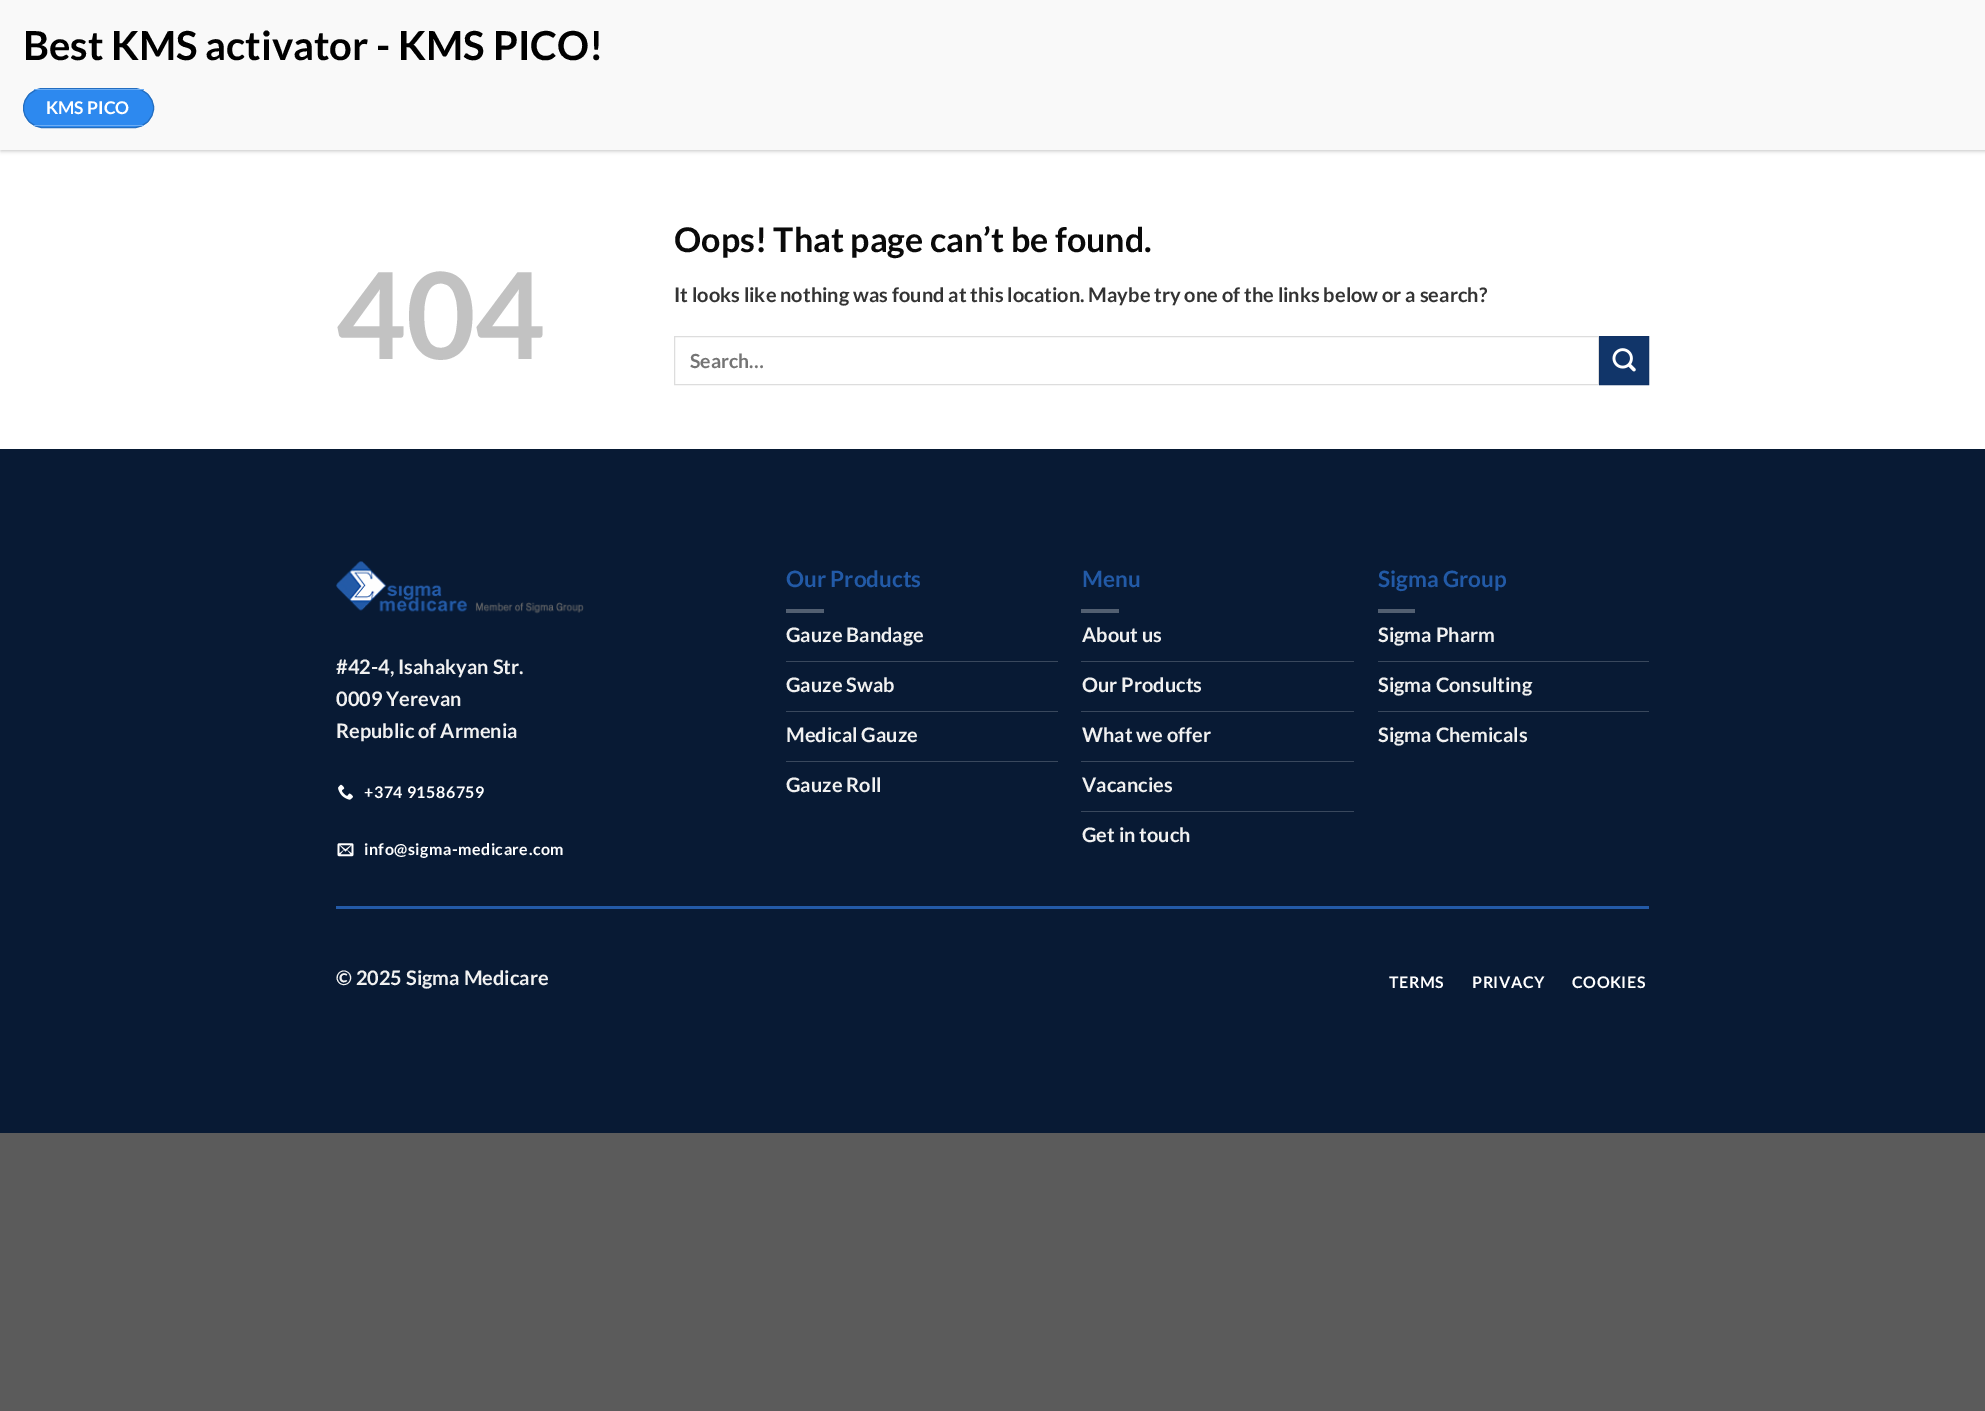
%!PS
<< /PageSize [1985 1411] /PageUsesTransparency true >> setpagedevice
/rgb { dup -16 bitshift 255 div exch dup -8 bitshift 255 and 255 div exch 255 and 255 div setrgbcolor } def
/font { [ exch dup neg 0 0 3 -1 roll 0 0 ] selectfont } def
/text { moveto show } def
/alpha { dup .setfillconstantalpha .setstrokeconstantalpha } def
/roundrect { 5 dict begin { /r /h /w /y /x } { exch def } forall
  x r add y moveto x w add y 2 copy h add r arct x w add y h add x 1 index r arct
  x y h add x y r arct x y 2 copy exch w add exch r arct closepath end } def
/shadow { 12 dict begin { /a /b /q /h /w /y /x } { exch def } forall gsave /was 0 def
  9 -2 -9 { dup b mul 4 div /e exch def 1 sub .425 mul 2.718 exch exp 1 add a .99 .min exch div /now exch def
    1 1 now sub 1 was sub div sub alpha /was now def
    w h .min e 2 mul add 0 gt { x e sub y e sub w e 2 mul add h e 2 mul add
      q e add b .6 mul add w h .min 2 div e add .min 0 .max roundrect fill } if } for grestore end } def
/picture { 5 dict begin { /h /w /y /x /name } { exch def } forall
  gsave x y translate w h scale
  w h 8 [w 0 0 h 0 0] name (r) file false 3 colorimage grestore end } def
0 .pushpdf14devicefilter
0 1411 translate 1 -1 scale
4 setmiterlimit
/s1 { /Lato-Bold 40 font 16#000000 rgb } def
/s2 { /Lato-Bold 17.5 font 16#FFFFFF rgb } def
/s3 { /Lato-Bold 120 font 16#C2C2C2 rgb } def
/s4 { /Lato-Bold 34 font 16#0A0A0A rgb } def
/s5 { /Lato-Bold 20 font 16#333333 rgb } def
/s6 { /Lato-Bold 19.5 font 16#757575 rgb } def
/s7 { /Lato-Bold 20 font 16#F1F1F1 rgb } def
/s8 { /Lato-Bold 22.5 font 16#225AA7 rgb } def
16#5B5B5B rgb
0 0 1985 1411 rectfill
16#FFFFFF rgb
0 150 1985 299 rectfill
16#020202 rgb
1 1 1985 150 0 2 0.23 shadow
16#F9F9F9 rgb
0 0 1985 150 rectfill
s1
(Best KMS activator - KMS PICO!) 23 60 text
16#2D89EF rgb
23.5 88.5 130 39 19.5 roundrect gsave fill grestore
16#246EC0 rgb
stroke
16#6CADF4 rgb
34 89 110 1 rectfill
34 125 110 1 rectfill
s2
(KMS PICO) 46 114 text
s3
(404) 336 359 text
s4
(Oops! That page can’t be found.) 674 252 text
s5
(It looks like nothing was found at this location. Maybe try one of the links below or a search?) 674 302 text
16#DDDDDD rgb
674.5 336.5 924 48 rectstroke
s6
(Search…) 690 368 text
16#113569 rgb
1599.5 336.5 moveto 1648.5 336.5 lineto 1648.5 384.5 lineto 1599.5 384.5 lineto closepath gsave fill grestore
16#103264 rgb
stroke
(pic1.raw) 1612 348 24 24 picture
16#081A34 rgb
0 449 1985 684 rectfill
(pic2.raw) 336 561 248 53 picture
s7
(#42-4, Isahakyan Str.) 336 674 text
(0009 Yerevan) 336 706 text
(Republic of Armenia) 336 738 text
(pic3.raw) 338 784 15 16 picture
/Lato-Bold 16 font
16#FFFFFF rgb
364 798 moveto 0.5 0 (+374 91586759) ashow
(pic4.raw) 337 843 17 14 picture
364 855 moveto 0.5 0 (info@sigma-medicare.com) ashow
s8
(Our Products) 786 587 text
16#525F71 rgb
786 609 38 4 rectfill
16#39485D rgb
786 661 272 1 rectfill
s7
(Gauze Bandage) 786 642 text
16#39485D rgb
786 711 272 1 rectfill
s7
(Gauze Swab) 786 692 text
16#39485D rgb
786 761 272 1 rectfill
s7
(Medical Gauze) 786 742 text
(Gauze Roll) 786 792 text
s8
(Menu) 1082 587 text
16#525F71 rgb
1081 609 38 4 rectfill
16#39485D rgb
1081 661 273 1 rectfill
s7
(About us) 1082 642 text
16#39485D rgb
1081 711 273 1 rectfill
s7
(Our Products) 1082 692 text
16#39485D rgb
1081 761 273 1 rectfill
s7
(What we offer) 1082 742 text
16#39485D rgb
1081 811 273 1 rectfill
s7
(Vacancies) 1082 792 text
(Get in touch) 1082 842 text
s8
(Sigma Group) 1378 587 text
16#525F71 rgb
1378 609 37 4 rectfill
16#39485D rgb
1378 661 271 1 rectfill
s7
(Sigma Pharm) 1378 642 text
16#39485D rgb
1378 711 271 1 rectfill
s7
(Sigma Consulting) 1378 692 text
(Sigma Chemicals) 1378 742 text
16#235AA7 rgb
336 906 1313 3 rectfill
s7
(© 2025 Sigma Medicare) 336 985 text
/Lato-Bold 16 font
16#FFFFFF rgb
1389 988 moveto 0.5 0 (TERMS) ashow
1472 988 moveto 0.5 0 (PRIVACY) ashow
1572 988 moveto 0.5 0 (COOKIES) ashow
.poppdf14devicefilter showpage
